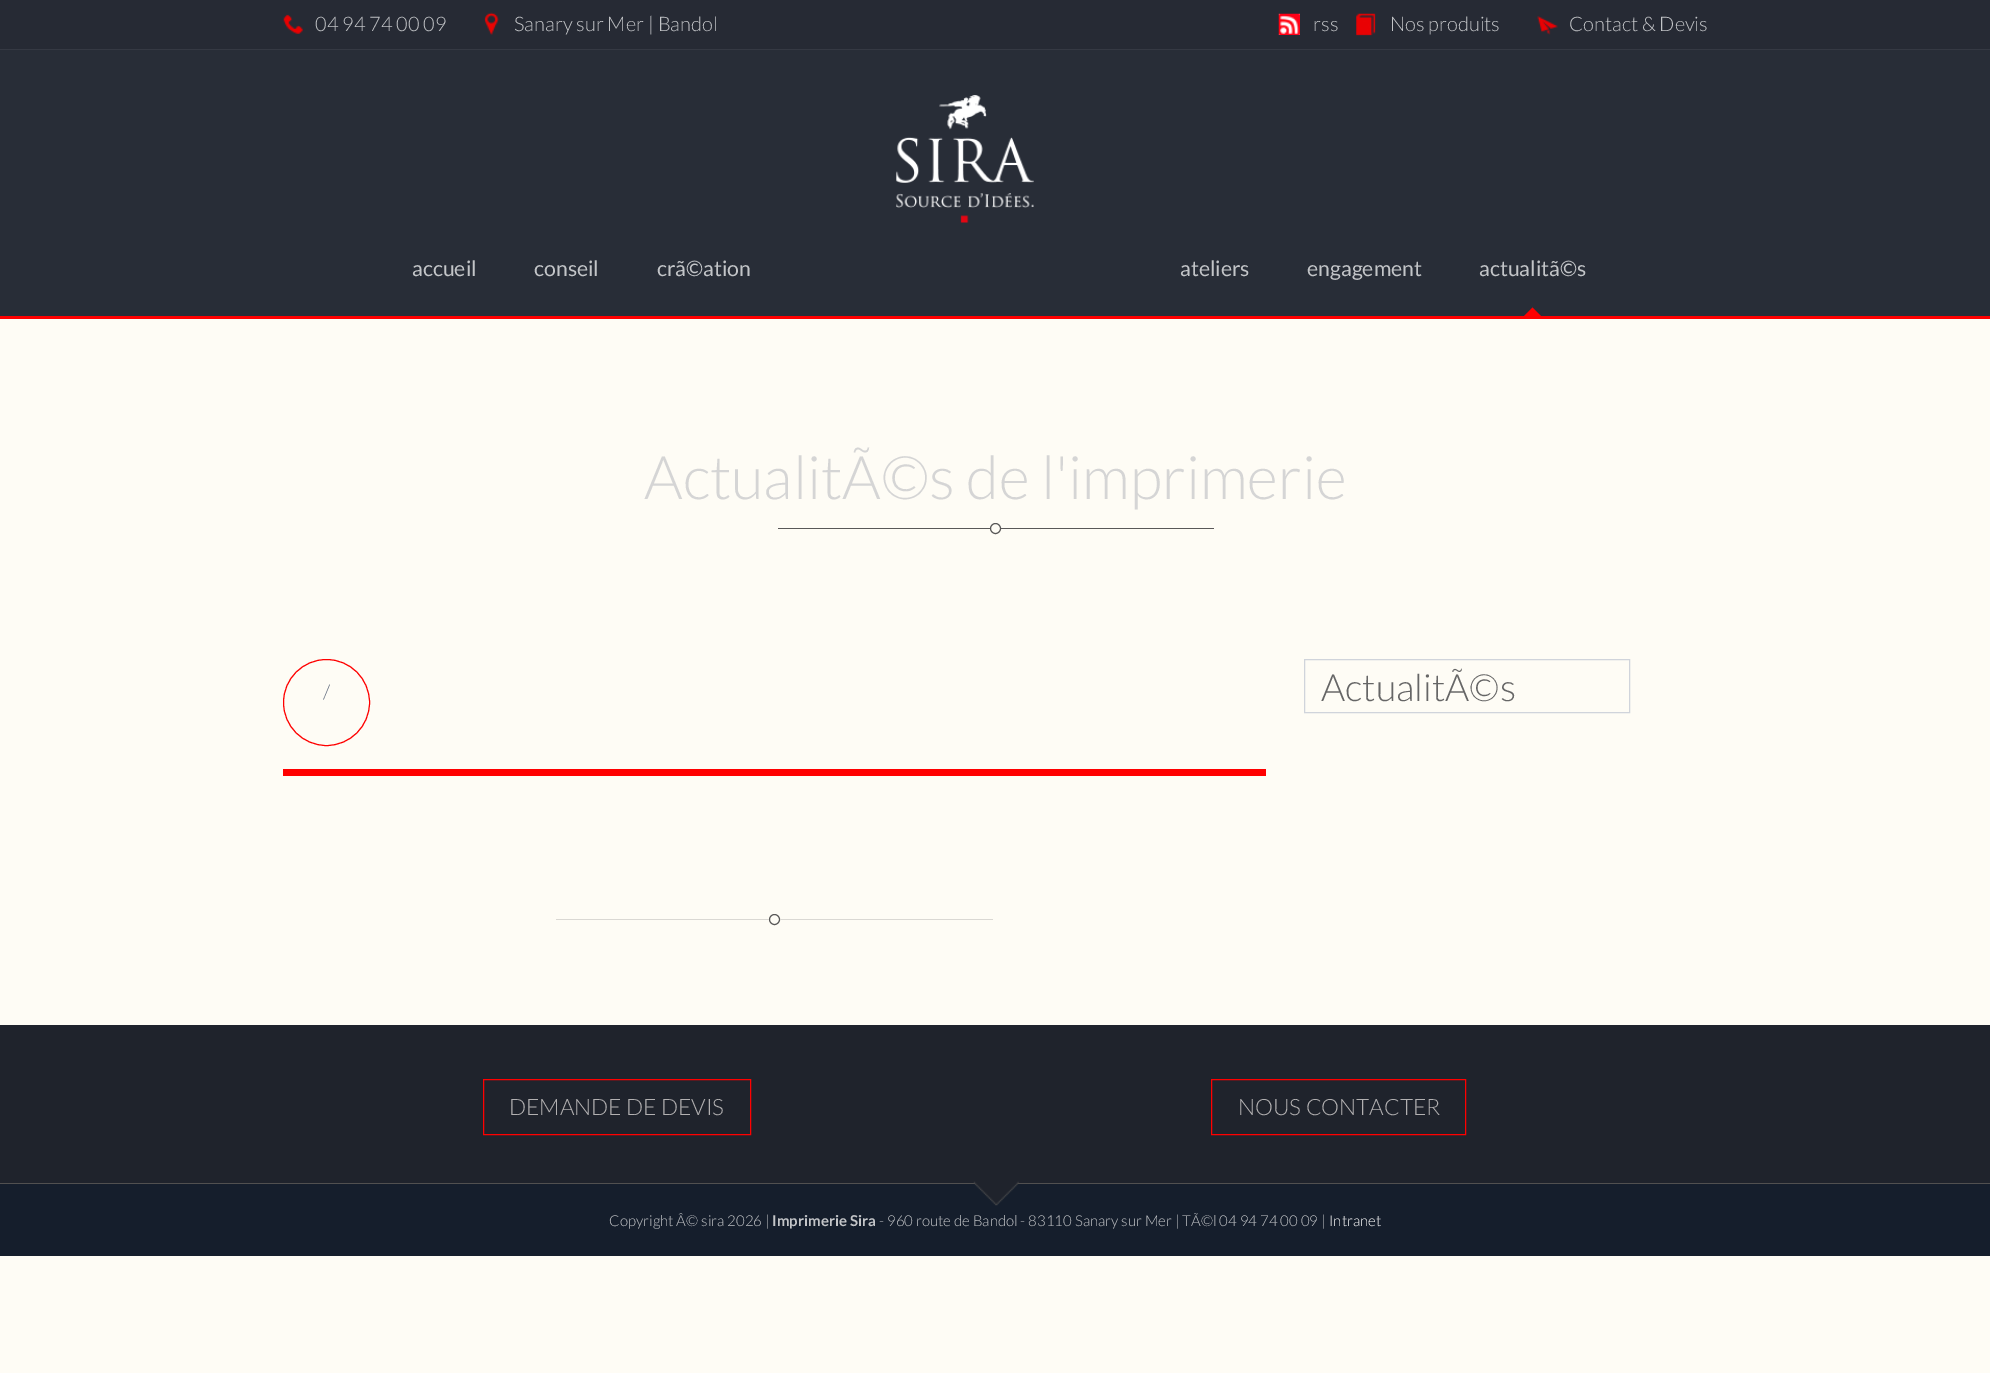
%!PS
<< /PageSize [1990 1373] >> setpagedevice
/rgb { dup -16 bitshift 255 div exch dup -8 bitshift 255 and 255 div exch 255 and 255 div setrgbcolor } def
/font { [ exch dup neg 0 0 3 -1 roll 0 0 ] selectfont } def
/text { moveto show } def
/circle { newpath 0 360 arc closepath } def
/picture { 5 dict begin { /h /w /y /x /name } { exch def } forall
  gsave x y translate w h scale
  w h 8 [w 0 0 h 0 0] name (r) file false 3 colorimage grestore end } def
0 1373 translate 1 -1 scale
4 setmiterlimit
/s1 { /Lato-Light 20 font 16#C3C5C8 rgb } def
/s2 { /Lato-Regular 21.25 font 16#C3C5C8 rgb } def
/s3 { /Lato-Light 20 font 16#646E80 rgb } def
/s4 { /Lato-Light 37.5 font 16#666666 rgb } def
/s5 { /Lato-Light 22.5 font 16#B2B0B1 rgb } def
/s6 { /Lato-Light 15 font 16#C3C5C8 rgb } def
/s7 { /Lato-Bold 15 font 16#C3C5C8 rgb } def
/s8 { /Lato-Light 15 font 16#FFFFFF rgb } def
16#FEFCF5 rgb
0 0 1990 1373 rectfill
16#282D37 rgb
0 50 1990 266 rectfill
16#FF0000 rgb
0 316 1990 3 rectfill
16#262A34 rgb
0 0 1990 49 rectfill
16#353943 rgb
0 49 1990 1 rectfill
(pic1.raw) 283 14 20 20 picture
s1
(04 94 74 00 09) 315 31 text
(pic2.raw) 484 12 15 23 picture
(Sanary sur Mer | Bandol) 514 31 text
(pic3.raw) 1278 13 22 22 picture
(rss) 1313 31 text
(pic4.raw) 1356 13 20 23 picture
(Nos produits) 1390 31 text
(pic5.raw) 1537 16 21 19 picture
(Contact & Devis) 1569 31 text
(pic6.raw) 896 95 138 128 picture
s2
(accueil) 412 276 text
(conseil) 534 276 text
(crã©ation) 657 276 text
(ateliers) 1180 276 text
(engagement) 1307 276 text
(actualitã©s) 1479 276 text
16#FF0000 rgb
1541 316 moveto 1524 316 lineto 1532.5 307.5 lineto closepath fill
/Lato-Light 60 font
16#D5D5D5 rgb
644 499 moveto -0.1 0 (ActualitÃ©s de l'imprimerie) ashow
16#595858 rgb
778 528 212 1 rectfill
995.5 528.5 5 circle stroke
1001 528 213 1 rectfill
16#FF0000 rgb
326.5 702.5 43 circle stroke
s3
(/) 323 699 text
16#FF0000 rgb
283 769 983 7 rectfill
16#DAD8D3 rgb
556 919 213 1 rectfill
16#595858 rgb
774.5 919.5 5 circle stroke
16#DAD8D3 rgb
780 919 213 1 rectfill
16#D0D4DB rgb
1304.5 659.5 325 53 rectstroke
s4
(ActualitÃ©s) 1321 701 text
16#1F232C rgb
0 1025 1990 158 rectfill
16#515050 rgb
0 1183 1990 1 rectfill
16#FF0000 rgb
483.5 1079.5 267 55 rectstroke
s5
(DEMANDE DE DEVIS) 509 1115 text
16#FF0000 rgb
1211.5 1079.5 254 55 rectstroke
s5
(NOUS CONTACTER) 1238 1115 text
16#151E2C rgb
0 1184 1990 72 rectfill
(pic7.raw) 973 1181 46 25 picture
s6
(Copyright Â© sira 2026 |) 609 1226 text
s7
(Imprimerie Sira) 772 1226 text
s6
(- 960 route de Bandol - 83110 Sanary sur Mer | TÃ©l 04 94 74 00 09 |) 879 1226 text
s8
(Intranet) 1329 1226 text
showpage
